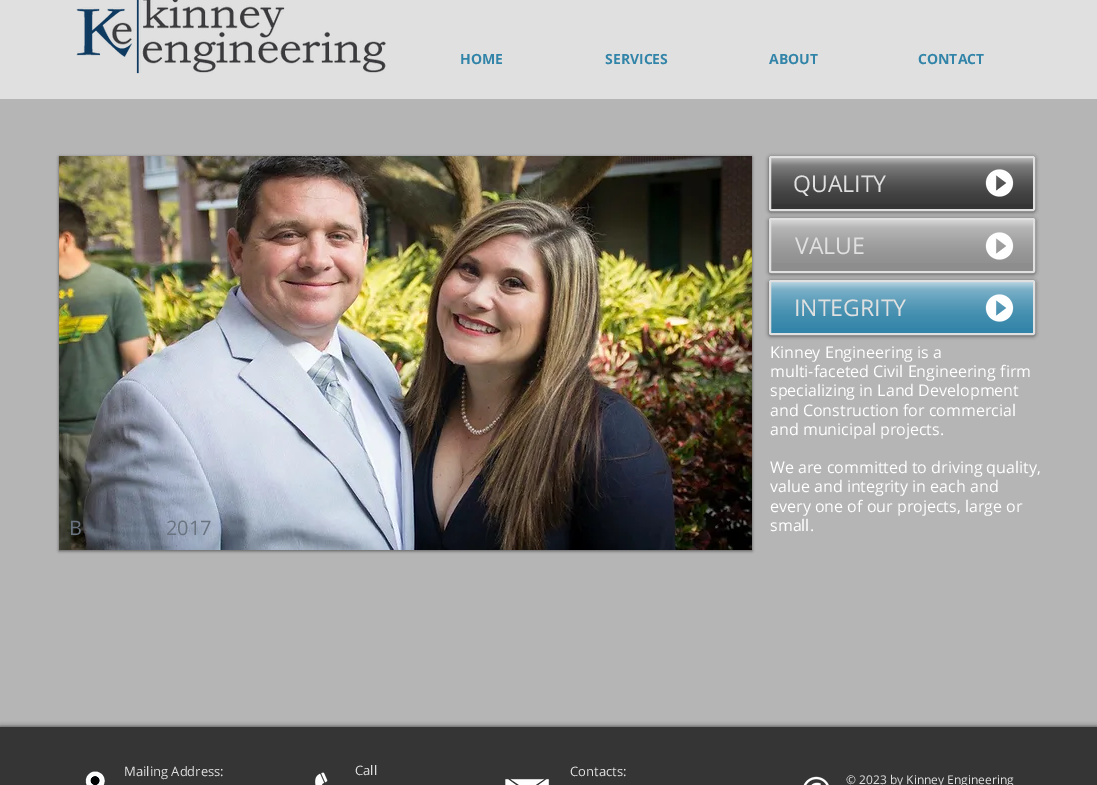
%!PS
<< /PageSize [1097 785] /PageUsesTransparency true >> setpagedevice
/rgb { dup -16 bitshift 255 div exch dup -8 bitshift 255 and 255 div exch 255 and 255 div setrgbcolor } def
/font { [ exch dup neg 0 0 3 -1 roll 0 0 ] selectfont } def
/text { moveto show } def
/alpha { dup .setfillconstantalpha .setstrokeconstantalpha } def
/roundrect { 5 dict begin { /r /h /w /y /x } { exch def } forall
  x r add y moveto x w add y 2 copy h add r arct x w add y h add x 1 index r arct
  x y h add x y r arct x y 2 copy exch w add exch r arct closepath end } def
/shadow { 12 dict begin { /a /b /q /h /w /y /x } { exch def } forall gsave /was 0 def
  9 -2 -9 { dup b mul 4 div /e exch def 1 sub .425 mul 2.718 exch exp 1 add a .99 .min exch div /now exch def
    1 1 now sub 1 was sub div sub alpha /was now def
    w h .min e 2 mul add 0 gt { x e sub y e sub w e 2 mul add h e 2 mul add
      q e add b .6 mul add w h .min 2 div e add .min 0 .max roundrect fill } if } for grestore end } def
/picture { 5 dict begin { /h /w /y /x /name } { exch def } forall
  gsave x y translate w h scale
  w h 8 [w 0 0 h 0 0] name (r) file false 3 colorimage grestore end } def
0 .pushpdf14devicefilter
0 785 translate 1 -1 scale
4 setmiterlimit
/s1 { /OpenSans-Bold 14 font 16#3284A8 rgb } def
/s2 { /OpenSans-Regular 23 font 16#E0E0E0 rgb } def
/s3 { /OpenSans-Regular 20 font 16#6A7380 rgb } def
/s4 { /OpenSans-Regular 16 font 16#FFFFFF rgb } def
/s5 { /OpenSans-Regular 13 font 16#E0E0E0 rgb } def
/s6 { /OpenSans-Regular 12 font 16#E0E0E0 rgb } def
16#B5B5B5 rgb
0 0 1097 785 rectfill
16#E0E0E0 rgb
0 0 1097 99 rectfill
(pic1.raw) 76 0 310 74 picture
s1
(HOME) 460 64 text
(SERVICES) 605 64 text
(ABOUT) 769 64 text
(CONTACT) 918 64 text
16#000000 rgb
769 157 266 55 2 2 0.6 shadow
16#353535 rgb
769 156 266 55 2 roundrect fill
(pic2.raw) 771 158 262 46 picture
16#E0E0E0 rgb
2 setlinewidth
770 157 264 53 1 roundrect stroke
s2
(QUALITY) 793 192 text
(pic3.raw) 985 169 29 28 picture
16#000000 rgb
769 219 266 55 2 2 0.6 shadow
16#8D8D8D rgb
769 218 266 55 2 roundrect fill
(pic4.raw) 771 220 262 43 picture
16#E0E0E0 rgb
770 219 264 53 1 roundrect stroke
(VALUE) 795 254 text
(pic5.raw) 985 232 29 28 picture
16#000000 rgb
769 281 266 55 2 2 0.6 shadow
16#3284A8 rgb
769 280 266 55 2 roundrect fill
(pic6.raw) 771 282 262 46 picture
16#E0E0E0 rgb
770 281 264 53 1 roundrect stroke
(INTEGRITY) 794 316 text
(pic7.raw) 985 294 29 28 picture
16#000000 rgb
59 157 693 394 0 1.5 0.5 shadow
(pic8.raw) 59 156 693 394 picture
s3
(B) 69 535 text
(2017) 166 535 text
s4
(Kinney Engineering is a) 770 358 text
(multi-faceted Civil Engineering firm) 770 377 text
(specializing in Land Development) 770 396 text
(and Construction for commercial) 770 416 text
(and municipal projects.) 770 435 text
(We are committed to driving quality,) 770 473 text
(value and integrity in each and) 770 492 text
(every one of our projects, large or) 770 512 text
(small.) 770 531 text
16#000000 rgb
0 727 1097 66 0 2.5 0.7 shadow
16#353535 rgb
0 727 1097 58 rectfill
(pic9.raw) 85 771 20 14 picture
s5
(Mailing Address:) 124 776 text
(pic10.raw) 315 772 13 13 picture
(Call) 355 775 text
(pic11.raw) 505 778 44 7 picture
(Contacts:) 570 776 text
(pic12.raw) 803 776 26 9 picture
s6
(© 2023 by Kinney Engineering) 846 784 text
.poppdf14devicefilter showpage
